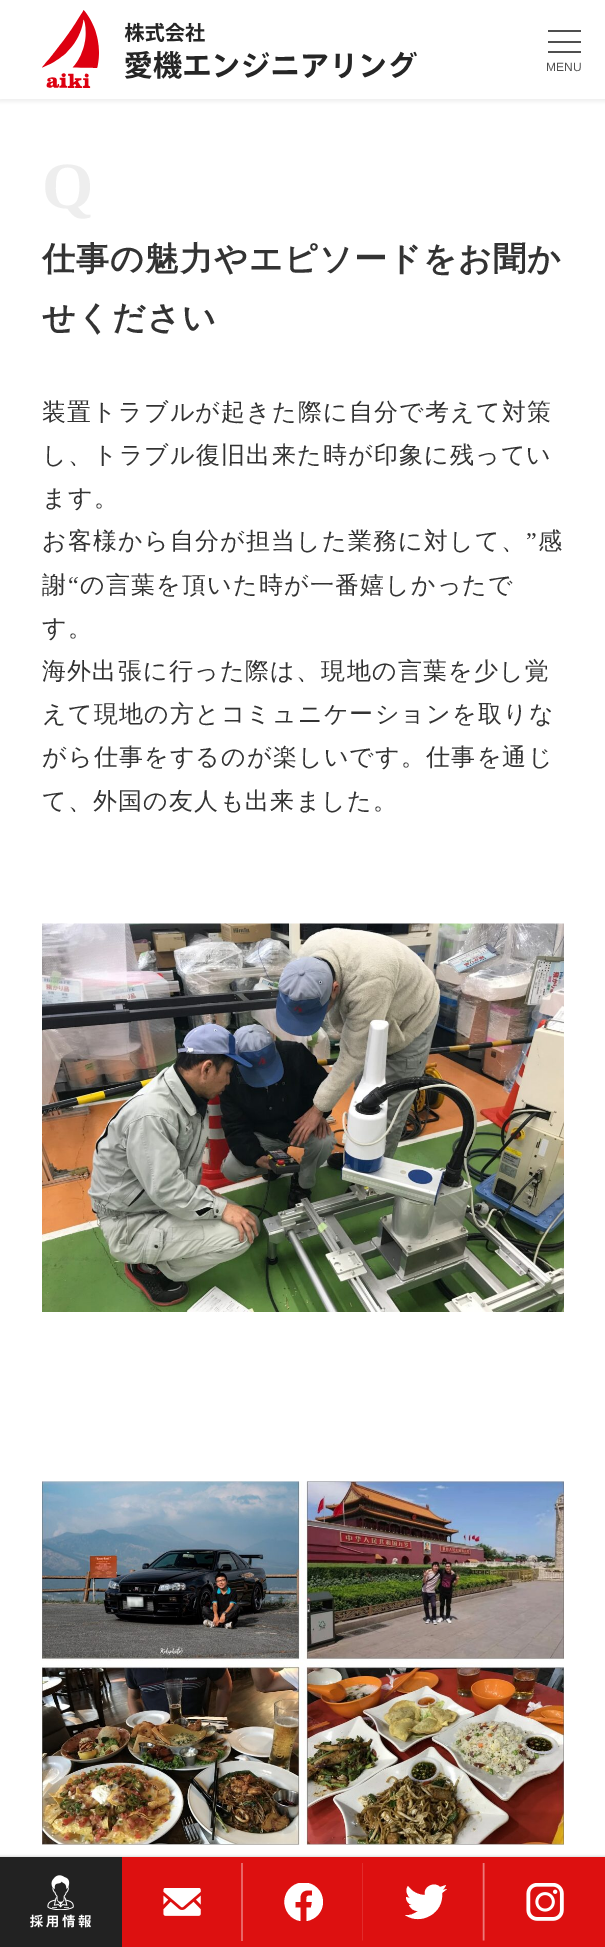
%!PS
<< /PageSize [605 1947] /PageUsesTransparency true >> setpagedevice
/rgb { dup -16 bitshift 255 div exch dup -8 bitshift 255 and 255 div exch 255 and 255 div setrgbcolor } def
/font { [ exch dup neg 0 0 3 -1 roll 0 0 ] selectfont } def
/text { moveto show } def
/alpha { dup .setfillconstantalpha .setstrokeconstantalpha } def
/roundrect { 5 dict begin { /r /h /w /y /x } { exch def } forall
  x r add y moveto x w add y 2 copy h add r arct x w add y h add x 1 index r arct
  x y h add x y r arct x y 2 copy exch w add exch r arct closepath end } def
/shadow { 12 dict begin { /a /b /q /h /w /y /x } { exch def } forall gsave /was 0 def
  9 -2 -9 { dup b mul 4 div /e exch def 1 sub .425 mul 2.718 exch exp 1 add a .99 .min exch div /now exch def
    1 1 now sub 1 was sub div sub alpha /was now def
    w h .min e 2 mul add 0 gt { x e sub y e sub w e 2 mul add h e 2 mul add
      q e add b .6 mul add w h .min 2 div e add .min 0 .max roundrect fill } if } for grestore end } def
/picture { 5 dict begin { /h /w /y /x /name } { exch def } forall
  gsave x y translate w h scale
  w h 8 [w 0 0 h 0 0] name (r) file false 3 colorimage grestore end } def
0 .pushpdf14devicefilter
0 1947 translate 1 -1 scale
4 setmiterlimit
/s1 { /LiberationSans-Regular 12 font 16#4F4F4F rgb } def
16#FFFFFF rgb
0 0 605 1947 rectfill
16#000000 rgb
-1 0 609 102 0 1.5 0.05 shadow
16#FFFFFF rgb
0 0 605 99 rectfill
(pic1.raw) 42 10 375 78 picture
16#4F4F4F rgb
548 30 33 2 rectfill
548 41 33 2 rectfill
548 51 33 2 rectfill
s1
(MENU) 546 71 text
/LiberationSerif-Bold 66 font
16#EEEEEE rgb
42 208 moveto 1.2 0 (Q) ashow
/WenQuanYiZenHei-Bold 33 font
16#333333 rgb
42 270 moveto 1.2 0 (仕事の魅力やエピソードをお聞か) ashow
42 329 moveto 1.2 0 (せください) ashow
/WenQuanYiZenHei-Medium 24 font
42 420 moveto 1.2 0 (装置トラブルが起きた際に自分で考えて対策) ashow
42 463 moveto 1.2 0 (し、トラブル復旧出来た時が印象に残ってい) ashow
42 506 moveto 1.2 0 (ます。) ashow
42 549 moveto 1.2 0 (お客様から自分が担当した業務に対して、) ashow
/LiberationSerif-Regular 24 font
526 549 moveto 1.2 0 (”) ashow
/WenQuanYiZenHei-Medium 24 font
538 549 moveto 1.2 0 (感) ashow
42 593 moveto 1.2 0 (謝) ashow
/LiberationSerif-Regular 24 font
68 593 moveto 1.2 0 (“) ashow
/WenQuanYiZenHei-Medium 24 font
80 593 moveto 1.2 0 (の言葉を頂いた時が一番嬉しかったで) ashow
42 636 moveto 1.2 0 (す。) ashow
42 679 moveto 1.2 0 (海外出張に行った際は、現地の言葉を少し覚) ashow
42 722 moveto 1.2 0 (えて現地の方とコミュニケーションを取りな) ashow
42 765 moveto 1.2 0 (がら仕事をするのが楽しいです。仕事を通じ) ashow
42 809 moveto 1.2 0 (て、外国の友人も出来ました。) ashow
(pic2.raw) 42 923 522 389 picture
(pic3.raw) 42 1481 522 364 picture
16#000000 rgb
0 1857 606 90 0 1.5 0.25 shadow
16#DD1010 rgb
122 1857 483 90 rectfill
16#222222 rgb
0 1857 122 90 rectfill
(pic4.raw) 30 1875 61 53 picture
(pic5.raw) 163 1863 80 78 picture
gsave
284 1883 39 38 rectclip
16#FFFFFF rgb
323 1902 moveto 323 1891.5 315 1883 304.5 1882.5 curveto 294.5 1882 285.5 1889.5 284.5 1900 curveto 283.5 1910 290.5 1919.5 300.5 1921 curveto 300.5 1907.5 lineto 295.5 1907.5 lineto 295.5 1902 lineto 300.5 1902 lineto 300.5 1896 lineto 301.5 1890 307.5 1890 312 1890.5 curveto 312 1895.5 lineto 306 1895.5 306.5 1896 306.5 1902 curveto 312 1902 lineto 311 1907.5 lineto 306.5 1907.5 lineto 306.5 1921 lineto 316 1919.5 323 1911.5 323 1902 curveto fill
grestore
gsave
243 1863 120 78 rectclip
16#EC7979 rgb
1.6 setlinewidth
363.5 1863 moveto 363.5 1940.5 lineto stroke
grestore
16#FFFFFF rgb
442 1893 moveto 444 1913 421 1926 405 1915 curveto 409 1916 414 1914 418 1911 curveto 414 1911 411 1909 409 1905 curveto 413 1905 lineto 409 1905 406 1901 406 1897 curveto 410 1898 lineto 407 1895 405 1890 408 1886 curveto 412 1892 419 1895 425 1895 curveto 423 1887 434 1881 440 1887 curveto 446 1885 lineto 445 1887 444 1889 442 1890 curveto 447 1889 lineto 442 1893 lineto fill
16#EC7979 rgb
1.6 setlinewidth
483.5 1863 moveto 483.5 1940.5 lineto stroke
(pic6.raw) 526 1883 38 38 picture
.poppdf14devicefilter showpage
